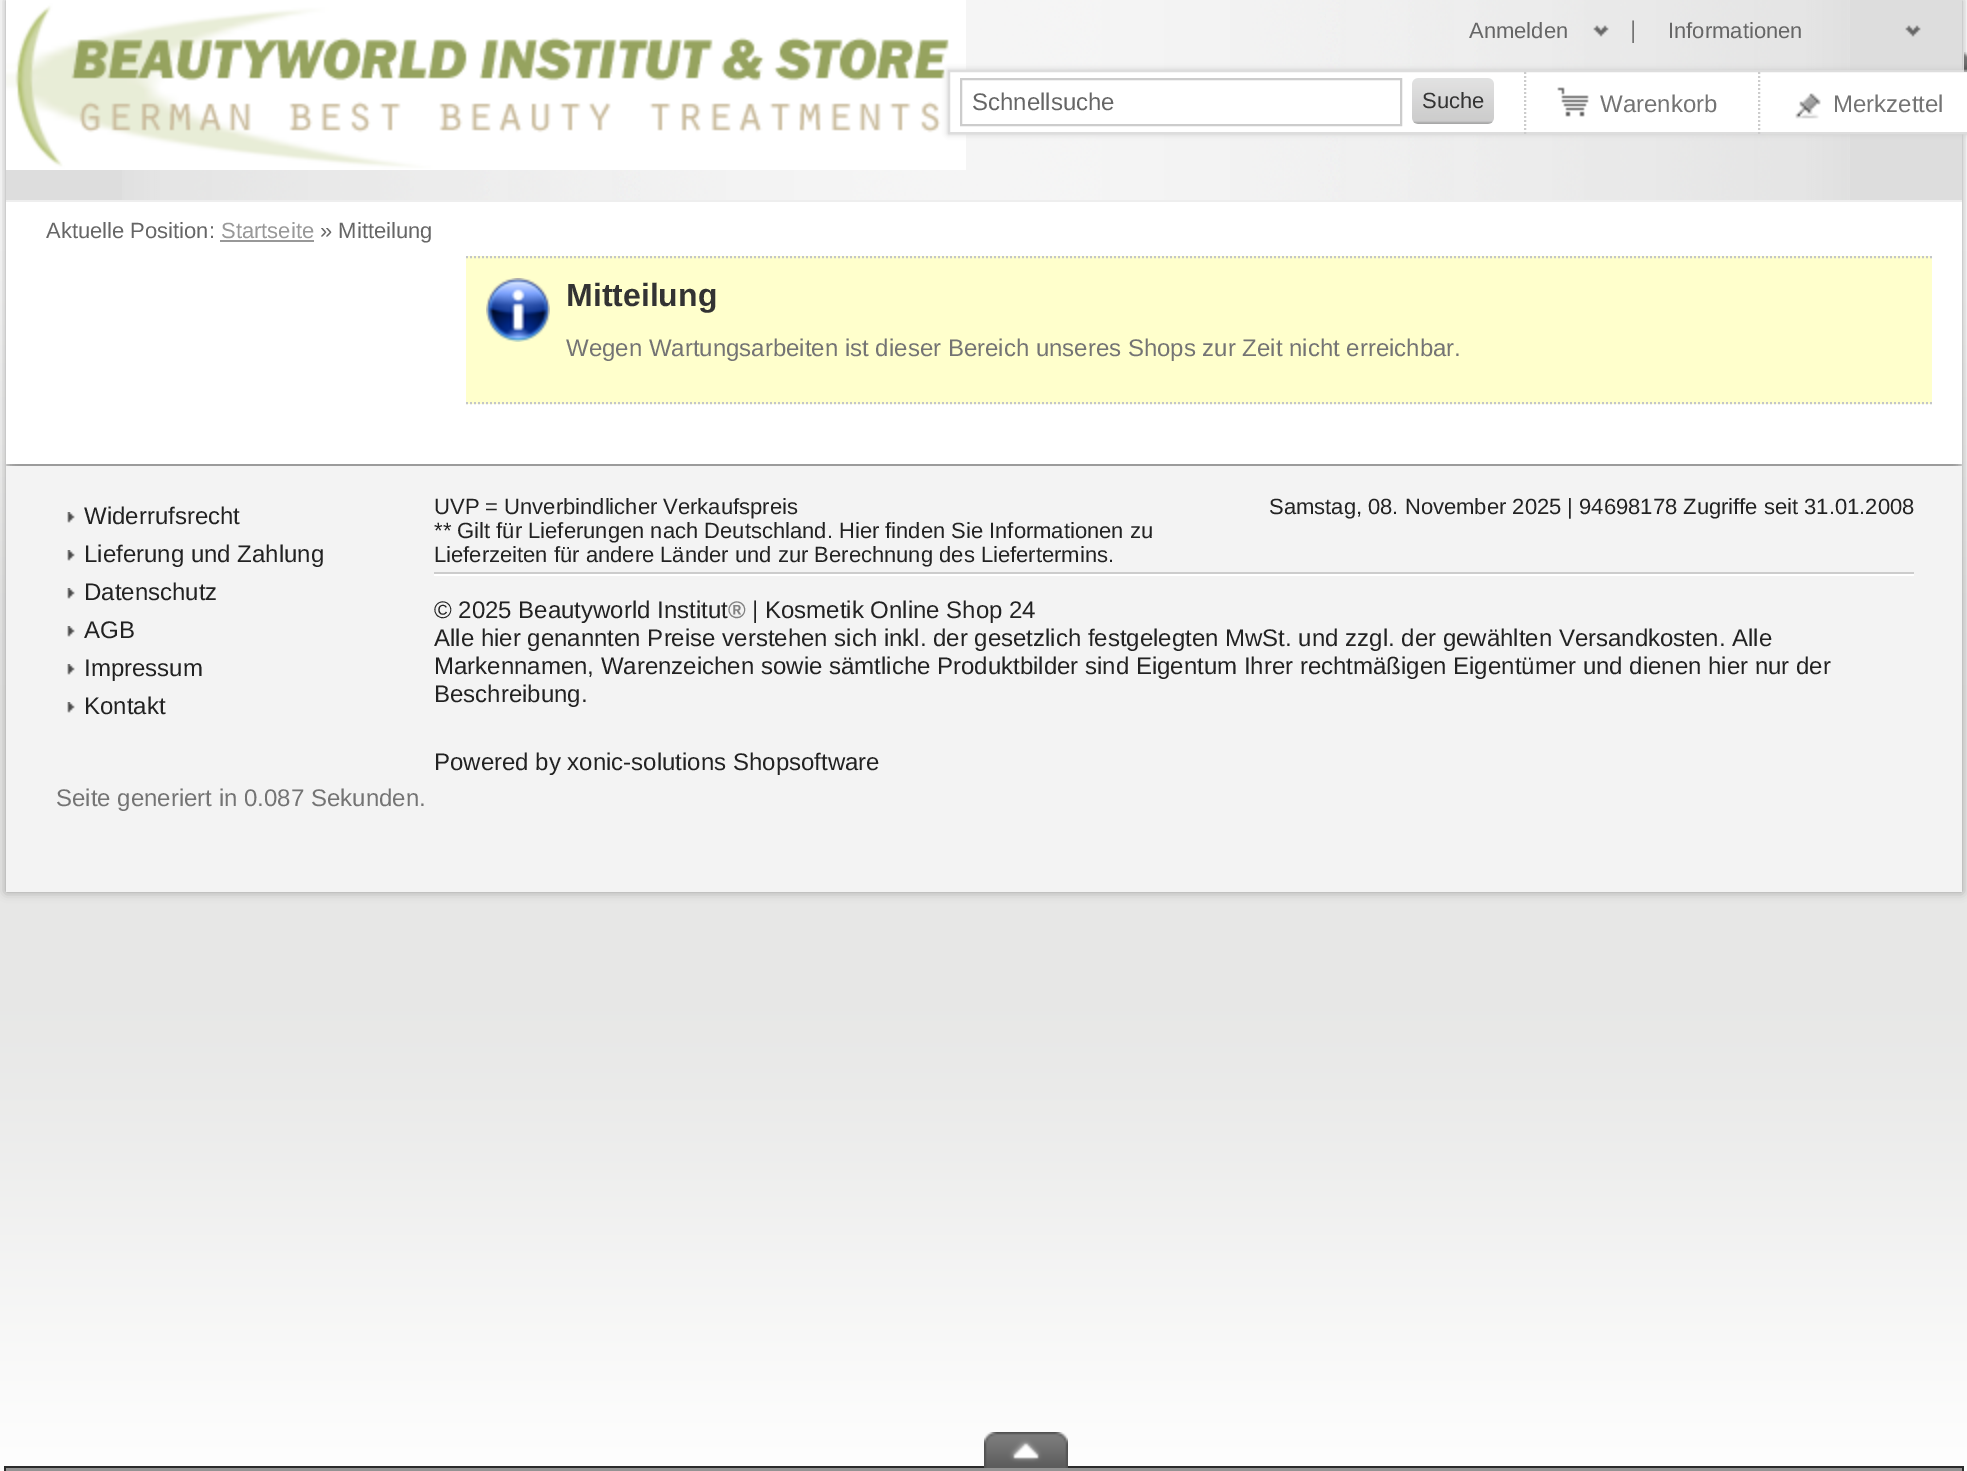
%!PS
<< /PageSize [1967 1471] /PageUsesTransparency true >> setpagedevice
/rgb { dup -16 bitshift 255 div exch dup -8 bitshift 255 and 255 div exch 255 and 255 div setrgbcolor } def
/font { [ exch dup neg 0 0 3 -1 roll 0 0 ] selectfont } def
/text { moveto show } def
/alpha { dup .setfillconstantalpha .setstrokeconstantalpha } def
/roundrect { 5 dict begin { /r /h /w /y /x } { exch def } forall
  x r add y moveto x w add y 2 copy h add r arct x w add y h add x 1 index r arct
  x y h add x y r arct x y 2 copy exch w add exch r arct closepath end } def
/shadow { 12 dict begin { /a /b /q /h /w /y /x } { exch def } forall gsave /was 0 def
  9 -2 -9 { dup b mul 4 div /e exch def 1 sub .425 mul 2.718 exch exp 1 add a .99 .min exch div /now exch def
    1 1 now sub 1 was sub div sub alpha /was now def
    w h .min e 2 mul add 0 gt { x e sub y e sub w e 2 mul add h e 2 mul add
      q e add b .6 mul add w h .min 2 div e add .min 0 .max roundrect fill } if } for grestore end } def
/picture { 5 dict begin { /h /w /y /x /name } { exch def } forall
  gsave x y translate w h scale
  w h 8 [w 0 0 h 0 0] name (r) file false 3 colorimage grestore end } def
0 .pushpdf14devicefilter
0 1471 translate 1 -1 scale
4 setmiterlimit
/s1 { /LiberationSans-Regular 22 font 16#666666 rgb } def
/s2 { /LiberationSans-Regular 24 font 16#747474 rgb } def
/s3 { /LiberationSans-Regular 24 font 16#666666 rgb } def
/s4 { /LiberationSans-Regular 22 font 16#333333 rgb } def
/s5 { /LiberationSans-Regular 22 font 16#989898 rgb } def
/s6 { /LiberationSans-Bold 32 font 16#333333 rgb } def
/s7 { /LiberationSans-Regular 24 font 16#222222 rgb } def
/s8 { /LiberationSans-Regular 22 font 16#222222 rgb } def
/s9 { /LiberationSans-Bold 24 font 16#808080 rgb } def
16#FFFFFF rgb
0 0 1967 1471 rectfill
(pic1.raw) 0 0 1967 1471 picture
16#999999 rgb
6 0 1956 892 0 5 1 shadow
16#DDDDDD rgb
6 0 1956 200 rectfill
(pic2.raw) 122 0 1728 200 picture
16#EEEEEE rgb
6 200 1956 2 rectfill
(pic3.raw) 6 0 960 170 picture
(pic4.raw) 1593 25 16 12 picture
s1
(Anmelden) 1469 38 text
s2
(|) 1630 38 text
(pic5.raw) 1905 25 16 12 picture
s1
(Informationen) 1668 38 text
16#CACACA rgb
948 70 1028 64 0 3 1 shadow
16#FFFFFF rgb
949 71 moveto 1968 71 lineto 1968 133 lineto 949 133 lineto closepath gsave fill grestore
16#DDDDDD rgb
2 setlinewidth
stroke
(pic6.raw) 1964 52 3 20 picture
16#CCCCCC rgb
961 79 440 46 rectstroke
s3
(Schnellsuche) 972 110 text
(pic7.raw) 1412 78 82 46 picture
s4
(Suche) 1422 108 text
16#CCCCCC rgb
[2 2] 0 setdash
1525 72 moveto 1525 136 lineto stroke
(pic8.raw) 1557 87 32 30 picture
s2
(Warenkorb) 1600 112 text
16#CCCCCC rgb
1759 72 moveto 1759 136 lineto stroke
(pic9.raw) 1795 93 26 26 picture
s2
(Merkzettel) 1833 112 text
16#FFFFFF rgb
6 202 1956 262 rectfill
s1
(Aktuelle Position:) 46 238 text
s5
(Startseite) 221 238 text
220 240 94 2 rectfill
s1
(» Mitteilung) 320 238 text
16#FFFFCC rgb
466 256 1466 148 rectfill
(pic10.raw) 486 278 64 64 picture
16#C3C6C8 rgb
466 257 moveto 1932 257 lineto stroke
466 403 moveto 1932 403 lineto stroke
s6
(Mitteilung) 566 306 text
s2
(Wegen Wartungsarbeiten ist dieser Bereich unseres Shops zur Zeit nicht erreichbar.) 566 356 text
16#F3F3F3 rgb
6 466 1956 426 rectfill
(pic11.raw) 67 512 8 11 picture
s7
(Widerrufsrecht) 84 524 text
(pic11.raw) 67 550 8 11 picture
(Lieferung und Zahlung) 84 562 text
(pic11.raw) 67 588 8 11 picture
(Datenschutz) 84 600 text
(pic11.raw) 67 626 8 11 picture
(AGB) 84 638 text
(pic11.raw) 67 664 8 11 picture
(Impressum) 84 676 text
(pic11.raw) 67 702 8 11 picture
(Kontakt) 84 714 text
16#CCCCCC rgb
434 572 1480 2 rectfill
s8
(UVP = Unverbindlicher Verkaufspreis) 434 514 text
(** Gilt für Lieferungen nach Deutschland. Hier finden Sie Informationen zu) 434 538 text
(Lieferzeiten für andere Länder und zur Berechnung des Liefertermins.) 434 562 text
(Samstag, 08. November 2025 | 94698178 Zugriffe seit 31.01.2008) 1269 514 text
16#FFFFFF rgb
434 574 1480 2 rectfill
s7
(© 2025 Beautyworld Institut) 434 618 text
s9
(®) 728 618 text
s7
(| Kosmetik Online Shop 24) 752 618 text
(Alle hier genannten Preise verstehen sich inkl. der gesetzlich festgelegten MwSt. und zzgl. der gewählten Versandkosten. Alle) 434 646 text
(Markennamen, Warenzeichen sowie sämtliche Produktbilder sind Eigentum Ihrer rechtmäßigen Eigentümer und dienen hier nur der) 434 674 text
(Beschreibung.) 434 702 text
(Powered by xonic-solutions Shopsoftware) 434 770 text
s2
(Seite generiert in 0.087 Sekunden.) 56 806 text
16#2B2B2B rgb
4 1466 1960 2 rectfill
(pic12.raw) 984 1432 84 36 picture
16#939393 rgb
4 1468 1960 3 rectfill
16#2B2B2B rgb
1962 1466 2 5 rectfill
4 1466 2 5 rectfill
.poppdf14devicefilter showpage
